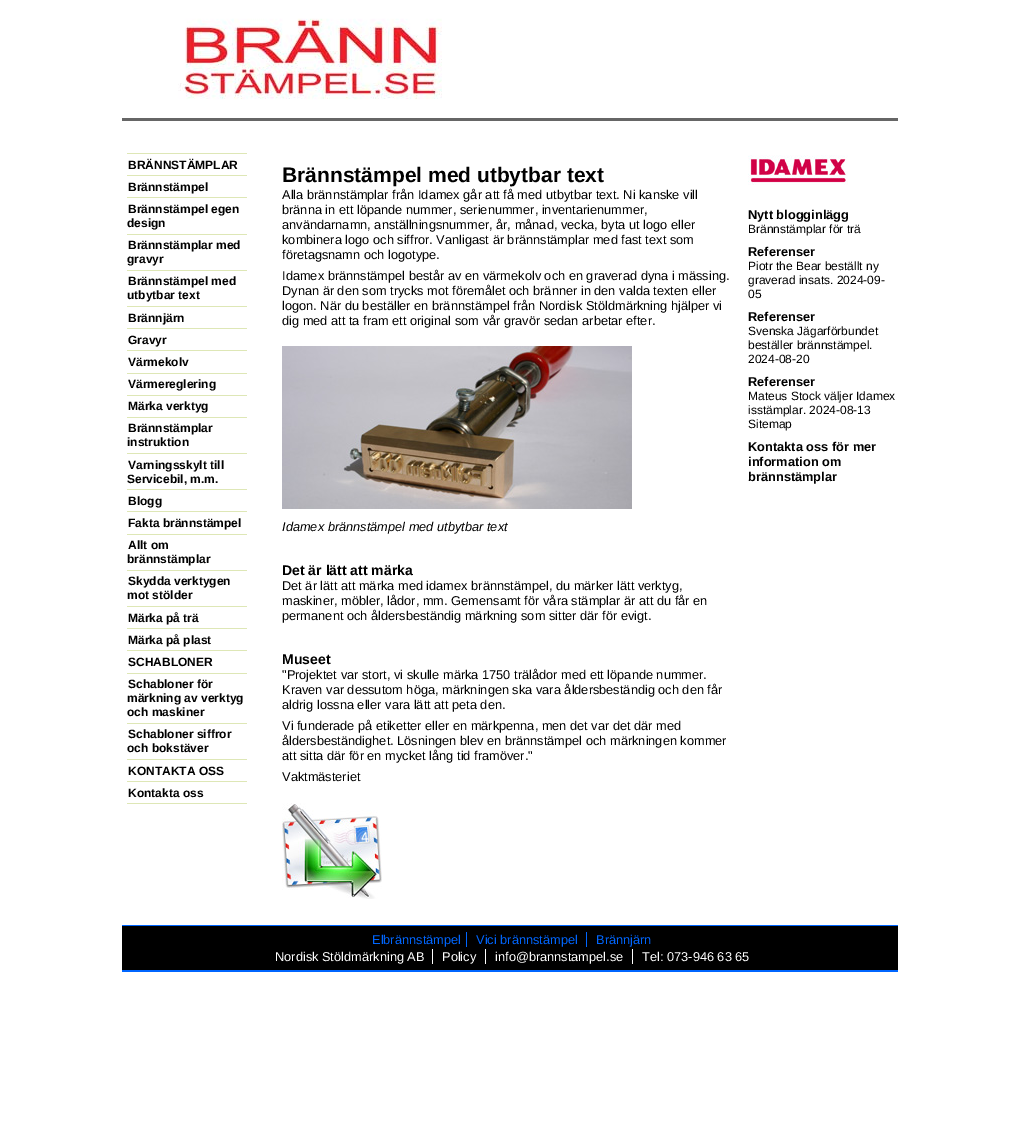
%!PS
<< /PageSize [1020 1125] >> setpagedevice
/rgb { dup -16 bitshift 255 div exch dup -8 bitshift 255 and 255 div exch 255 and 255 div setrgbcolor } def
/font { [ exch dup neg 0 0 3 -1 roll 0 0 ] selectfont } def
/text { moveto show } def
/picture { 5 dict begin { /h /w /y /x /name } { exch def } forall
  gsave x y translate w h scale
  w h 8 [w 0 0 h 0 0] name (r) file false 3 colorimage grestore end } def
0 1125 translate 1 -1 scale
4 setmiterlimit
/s1 { /LiberationSans-Bold 12 font 16#000000 rgb } def
/s2 { /LiberationSans-Bold 21 font 16#000000 rgb } def
/s3 { /LiberationSans-Regular 12.8 font 16#000000 rgb } def
/s4 { /LiberationSans-Italic 12.8 font 16#000000 rgb } def
/s5 { /LiberationSans-Bold 14 font 16#000000 rgb } def
/s6 { /LiberationSans-Bold 12.8 font 16#000000 rgb } def
/s7 { /LiberationSans-Regular 12 font 16#000000 rgb } def
/s8 { /LiberationSans-Regular 12.8 font 16#0066FF rgb } def
/s9 { /LiberationSans-Regular 12.8 font 16#FFFFFF rgb } def
16#FFFFFF rgb
0 0 1020 1125 rectfill
16#666666 rgb
122 118 776 3 rectfill
(pic1.raw) 178 18 264 82 picture
16#DEE7B6 rgb
127 153 120 1 rectfill
127 175 120 1 rectfill
s1
(BRÄNNSTÄMPLAR) 128 169 text
16#DEE7B6 rgb
127 197 120 1 rectfill
s1
(Brännstämpel) 128 191 text
16#DEE7B6 rgb
127 234 120 1 rectfill
s1
(Brännstämpel egen) 128 213 text
(design) 127 227 text
16#DEE7B6 rgb
127 270 120 1 rectfill
s1
(Brännstämplar med) 128 249 text
(gravyr) 127 263 text
16#DEE7B6 rgb
127 306 120 1 rectfill
s1
(Brännstämpel med) 128 285 text
(utbytbar text) 127 299 text
16#DEE7B6 rgb
127 328 120 1 rectfill
s1
(Brännjärn) 128 322 text
16#DEE7B6 rgb
127 350 120 1 rectfill
s1
(Gravyr) 128 344 text
16#DEE7B6 rgb
127 373 120 1 rectfill
s1
(Värmekolv) 128 366 text
16#DEE7B6 rgb
127 395 120 1 rectfill
s1
(Värmereglering) 128 388 text
16#DEE7B6 rgb
127 417 120 1 rectfill
s1
(Märka verktyg) 128 410 text
16#DEE7B6 rgb
127 453 120 1 rectfill
s1
(Brännstämplar) 128 432 text
(instruktion) 127 446 text
16#DEE7B6 rgb
127 489 120 1 rectfill
s1
(Varningsskylt till) 128 469 text
(Servicebil, m.m.) 127 483 text
16#DEE7B6 rgb
127 511 120 1 rectfill
s1
(Blogg) 128 505 text
16#DEE7B6 rgb
127 534 120 1 rectfill
s1
(Fakta brännstämpel) 128 527 text
16#DEE7B6 rgb
127 570 120 1 rectfill
s1
(Allt om) 128 549 text
(brännstämplar) 127 563 text
16#DEE7B6 rgb
127 606 120 1 rectfill
s1
(Skydda verktygen) 128 585 text
(mot stölder) 127 599 text
16#DEE7B6 rgb
127 628 120 1 rectfill
s1
(Märka på trä) 128 622 text
16#DEE7B6 rgb
127 650 120 1 rectfill
s1
(Märka på plast) 128 644 text
16#DEE7B6 rgb
127 673 120 1 rectfill
s1
(SCHABLONER) 128 666 text
16#DEE7B6 rgb
127 723 120 1 rectfill
s1
(Schabloner för) 128 688 text
(märkning av verktyg) 127 702 text
(och maskiner) 127 716 text
16#DEE7B6 rgb
127 759 120 1 rectfill
s1
(Schabloner siffror) 128 738 text
(och bokstäver) 127 752 text
16#DEE7B6 rgb
127 781 120 1 rectfill
s1
(KONTAKTA OSS) 128 775 text
16#DEE7B6 rgb
127 803 120 1 rectfill
s1
(Kontakta oss) 128 797 text
s2
(Brännstämpel med utbytbar text) 282 182 text
s3
(Alla brännstämplar från Idamex går att få med utbytbar text. Ni kanske vill) 282 199 text
(bränna in ett löpande nummer, serienummer, inventarienummer,) 282 214 text
(användarnamn, anställningsnummer, år, månad, vecka, byta ut logo eller) 282 229 text
(kombinera logo och siffror. Vanligast är brännstämplar med fast text som) 282 244 text
(företagsnamn och logotype.) 282 259 text
(Idamex brännstämpel består av en värmekolv och en graverad dyna i mässing.) 282 280 text
(Dynan är den som trycks mot föremålet och bränner in den valda texten eller) 282 295 text
(logon. När du beställer en brännstämpel från Nordisk Stöldmärkning hjälper vi) 282 310 text
(dig med att ta fram ett original som vår gravör sedan arbetar efter.) 282 325 text
(pic2.raw) 282 346 350 163 picture
s4
(Idamex brännstämpel med utbytbar text) 282 531 text
s5
(Det är lätt att märka) 282 575 text
s3
(Det är lätt att märka med idamex brännstämpel, du märker lätt verktyg,) 282 590 text
(maskiner, möbler, lådor, mm. Gemensamt för våra stämplar är att du får en) 282 605 text
(permanent och åldersbeständig märkning som sitter där för evigt.) 282 620 text
s5
(Museet) 282 664 text
s3
("Projektet var stort, vi skulle märka 1750 trälådor med ett löpande nummer.) 282 679 text
(Kraven var dessutom höga, märkningen ska vara åldersbeständig och den får) 282 694 text
(aldrig lossna eller vara lätt att peta den.) 282 709 text
(Vi funderade på etiketter eller en märkpenna, men det var det där med) 282 730 text
(åldersbeständighet. Lösningen blev en brännstämpel och märkningen kommer) 282 745 text
(att sitta där för en mycket lång tid framöver.") 282 760 text
(Vaktmästeriet) 282 781 text
(pic3.raw) 282 803 100 96 picture
(pic4.raw) 748 155 100 30 picture
s6
(Nytt blogginlägg) 748 219 text
s7
(Brännstämplar för trä) 748 233 text
s6
(Referenser) 748 256 text
s7
(Piotr the Bear beställt ny) 748 270 text
(graverad insats. 2024-09-) 748 284 text
(05) 748 298 text
s6
(Referenser) 748 321 text
s7
(Svenska Jägarförbundet) 748 335 text
(beställer brännstämpel.) 748 349 text
(2024-08-20) 748 363 text
s6
(Referenser) 748 386 text
s7
(Mateus Stock väljer Idamex) 748 400 text
(isstämplar. 2024-08-13) 748 414 text
(Sitemap) 748 428 text
s6
(Kontakta oss för mer) 748 451 text
(information om) 748 466 text
(brännstämplar) 748 481 text
122 926 776 44 rectfill
16#0066FF rgb
122 925 776 1 rectfill
122 970 776 2 rectfill
s8
(Elbrännstämpel) 372 944 text
(Vici brännstämpel) 476 944 text
466 932 1 15 rectfill
(Brännjärn) 596 944 text
586 932 1 15 rectfill
s9
(Nordisk Stöldmärkning AB) 275 961 text
(Policy) 442 961 text
432 949 1 15 rectfill
(info@brannstampel.se) 495 961 text
485 949 1 15 rectfill
(Tel: 073-946 63 65) 642 961 text
632 949 1 15 rectfill
showpage
